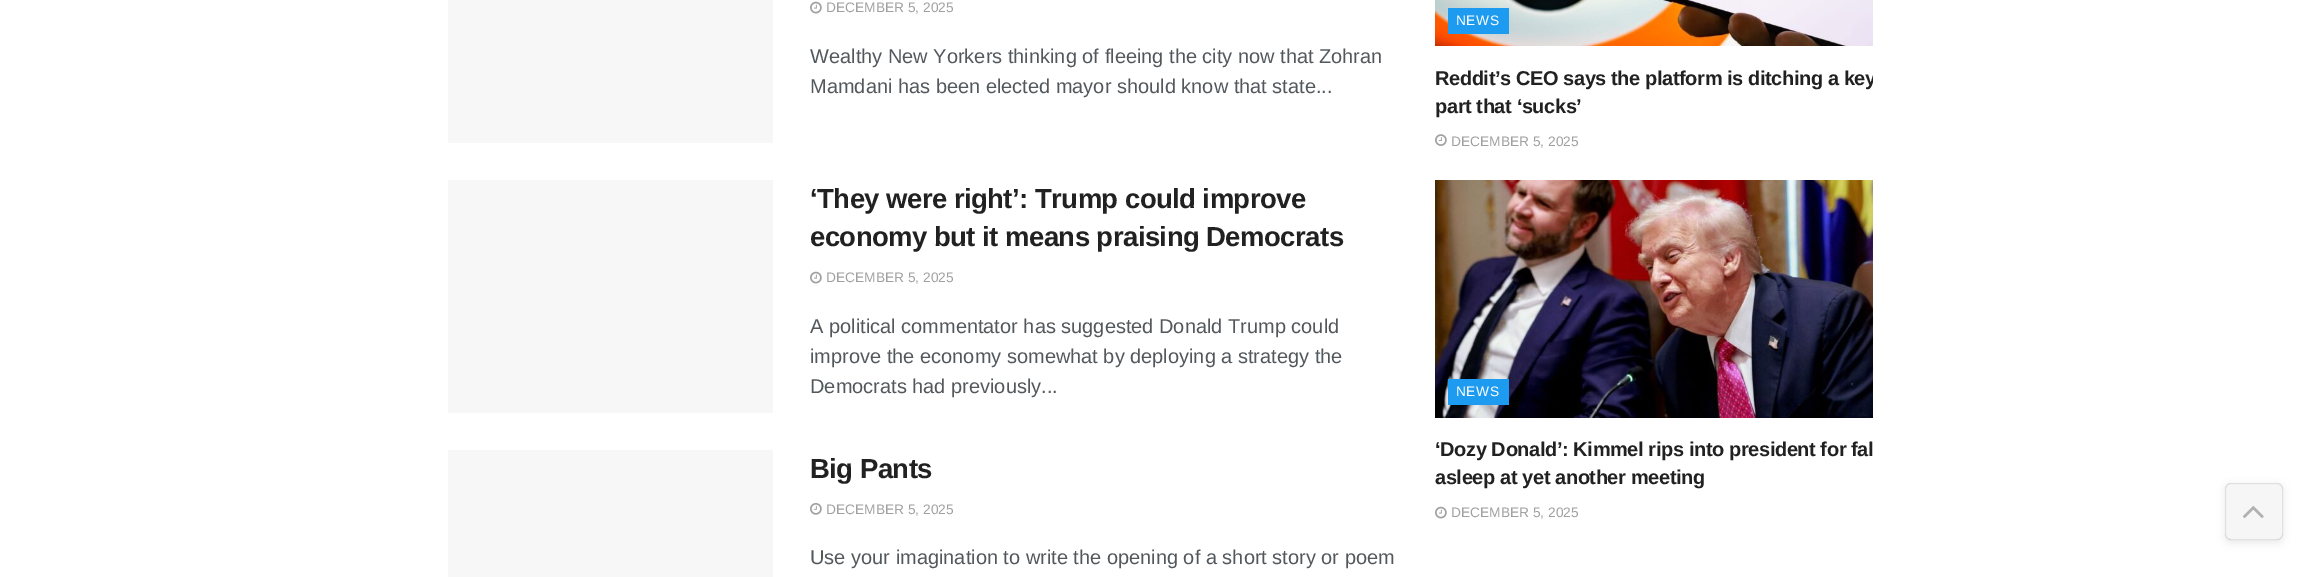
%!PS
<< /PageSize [2320 577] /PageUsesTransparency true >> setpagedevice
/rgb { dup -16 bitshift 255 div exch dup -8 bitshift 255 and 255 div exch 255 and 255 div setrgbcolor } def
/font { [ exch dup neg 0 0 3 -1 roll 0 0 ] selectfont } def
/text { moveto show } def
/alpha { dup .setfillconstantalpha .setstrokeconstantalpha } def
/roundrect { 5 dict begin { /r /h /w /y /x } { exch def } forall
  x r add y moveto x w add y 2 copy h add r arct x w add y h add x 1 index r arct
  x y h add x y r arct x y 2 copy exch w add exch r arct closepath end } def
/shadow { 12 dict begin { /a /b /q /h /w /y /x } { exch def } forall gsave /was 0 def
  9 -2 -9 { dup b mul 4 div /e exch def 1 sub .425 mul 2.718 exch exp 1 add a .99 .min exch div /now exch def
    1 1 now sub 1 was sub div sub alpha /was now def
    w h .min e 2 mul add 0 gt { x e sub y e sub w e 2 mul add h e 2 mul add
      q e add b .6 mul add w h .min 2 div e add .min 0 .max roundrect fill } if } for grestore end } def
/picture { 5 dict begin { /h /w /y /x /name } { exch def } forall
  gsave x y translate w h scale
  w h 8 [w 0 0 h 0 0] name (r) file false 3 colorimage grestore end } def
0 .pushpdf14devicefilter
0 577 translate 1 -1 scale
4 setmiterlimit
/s1 { /LiberationSans-Regular 13.75 font 16#A0A0A0 rgb } def
/s2 { /LiberationSans-Regular 20 font 16#53585C rgb } def
16#FFFFFF rgb
0 0 2320 577 rectfill
16#F7F7F7 rgb
448 0 325 143 rectfill
(pic1.raw) 810 1 12 13 picture
s1
(DECEMBER 5, 2025) 826 12 text
s2
(Wealthy New Yorkers thinking of fleeing the city now that Zohran) 810 63 text
(Mamdani has been elected mayor should know that state...) 810 93 text
16#F7F7F7 rgb
448 180 325 233 rectfill
/LiberationSans-Bold 27.5 font
16#212121 rgb
810 208 moveto -0.55 0 (‘They were right’: Trump could improve) ashow
810 246 moveto -0.55 0 (economy but it means praising Democrats) ashow
(pic1.raw) 810 271 12 13 picture
s1
(DECEMBER 5, 2025) 826 282 text
s2
(A political commentator has suggested Donald Trump could) 810 333 text
(improve the economy somewhat by deploying a strategy the) 810 363 text
(Democrats had previously...) 810 393 text
16#F7F7F7 rgb
448 450 325 127 rectfill
/LiberationSans-Bold 27.5 font
16#212121 rgb
810 478 moveto -0.55 0 (Big Pants) ashow
(pic2.raw) 810 503 12 12 picture
s1
(DECEMBER 5, 2025) 826 514 text
s2
(Use your imagination to write the opening of a short story or poem) 810 564 text
(pic3.raw) 1435 0 438 46 picture
16#1D9BF0 rgb
1448 8 61 26 rectfill
/LiberationSans-Regular 13.75 font
16#FFFFFF rgb
1456 25 moveto 0.5 0 (NEWS) ashow
gsave
1435 0 438 551 rectclip
/LiberationSans-Bold 20 font
16#212121 rgb
1435 85 moveto -0.4 0 (Reddit’s CEO says the platform is ditching a key) ashow
grestore
/LiberationSans-Bold 20 font
16#212121 rgb
1435 113 moveto -0.4 0 (part that ‘sucks’) ashow
(pic4.raw) 1435 134 12 12 picture
s1
(DECEMBER 5, 2025) 1451 146 text
(pic5.raw) 1435 180 438 238 picture
16#1D9BF0 rgb
1448 379 61 26 rectfill
16#FFFFFF rgb
1456 396 moveto 0.5 0 (NEWS) ashow
/LiberationSans-Bold 20 font
16#212121 rgb
1435 456 moveto -0.4 0 (‘Dozy Donald’: Kimmel rips into president for fal) ashow
1435 484 moveto -0.4 0 (asleep at yet another meeting) ashow
(pic1.raw) 1435 506 12 13 picture
s1
(DECEMBER 5, 2025) 1451 517 text
gsave
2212 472 moveto 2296 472 lineto 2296 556 lineto 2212 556 lineto closepath 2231 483 moveto 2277 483 lineto 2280.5 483 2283 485.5 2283 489 curveto 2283 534 lineto 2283 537.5 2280.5 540 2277 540 curveto 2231 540 lineto 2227.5 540 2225 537.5 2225 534 curveto 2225 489 lineto 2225 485.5 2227.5 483 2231 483 curveto closepath eoclip newpath
16#333333 rgb
2225 485 58 58 6 4 0.1 shadow
grestore
0.15 alpha
16#C3C3C3 rgb
2225 483 58 57 6 roundrect fill
0.11 alpha
16#333333 rgb
2225.5 483.5 57 56 5.5 roundrect stroke
1 alpha
(pic6.raw) 2243 506 21 12 picture
.poppdf14devicefilter showpage
